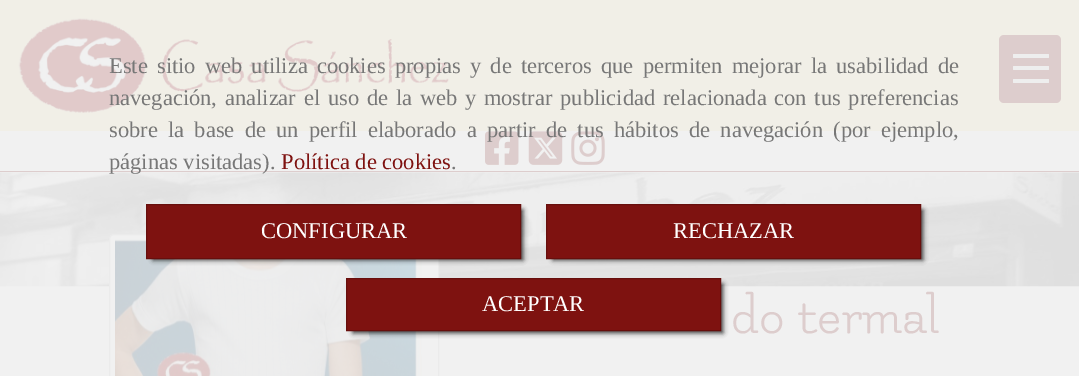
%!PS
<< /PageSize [1079 376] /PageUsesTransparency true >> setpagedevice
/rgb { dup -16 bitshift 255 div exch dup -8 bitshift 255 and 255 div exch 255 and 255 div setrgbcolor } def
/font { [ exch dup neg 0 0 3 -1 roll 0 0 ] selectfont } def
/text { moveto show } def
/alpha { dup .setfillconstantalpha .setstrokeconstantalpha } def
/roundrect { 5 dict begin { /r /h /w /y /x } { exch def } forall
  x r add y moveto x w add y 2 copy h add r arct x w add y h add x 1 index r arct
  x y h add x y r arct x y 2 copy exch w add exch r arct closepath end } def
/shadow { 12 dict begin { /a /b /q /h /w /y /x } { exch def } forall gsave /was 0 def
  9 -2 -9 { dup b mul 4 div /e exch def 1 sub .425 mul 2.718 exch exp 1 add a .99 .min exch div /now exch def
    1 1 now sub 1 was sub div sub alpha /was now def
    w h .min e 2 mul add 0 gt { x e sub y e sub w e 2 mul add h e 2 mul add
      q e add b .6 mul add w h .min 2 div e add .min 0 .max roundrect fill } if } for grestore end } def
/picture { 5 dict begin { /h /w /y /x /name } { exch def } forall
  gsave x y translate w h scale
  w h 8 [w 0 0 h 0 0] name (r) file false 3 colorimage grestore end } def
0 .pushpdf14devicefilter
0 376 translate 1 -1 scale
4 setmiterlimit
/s1 { /LiberationSerif-Regular 22.5 font 16#777777 rgb } def
/s2 { /LiberationSerif-Regular 22.5 font 16#7E1210 rgb } def
/s3 { /LiberationSerif-Regular 22.5 font 16#FFFFFF rgb } def
/s4 { /Flamenco-Regular 55 font 16#DDCDCD rgb } def
16#F1F1F1 rgb
0 0 1079 376 rectfill
16#F1EFE7 rgb
0 0 1079 131 rectfill
(pic1.raw) 18 18 431 95 picture
16#DDCDCD rgb
999 35 62 68 5 roundrect fill
16#EEEEEE rgb
1013 66 36 4 1 roundrect fill
1013 54 36 4 1 roundrect fill
1013 79 36 4 1 roundrect fill
16#DDCDCD rgb
0 171 1079 1 rectfill
(pic2.raw) 485 131 34 34 picture
(pic3.raw) 528 131 35 34 picture
(pic4.raw) 571 131 34 34 picture
(pic5.raw) 0 172 1079 115 picture
/LiberationSerif-Regular 22.5 font
16#777777 rgb
109 73 moveto 3.5 0 32 (Este sitio web utiliza cookies propias y de terceros que permiten mejorar la usabilidad de) widthshow
109 105 moveto 2.1 0 32 (navegación, analizar el uso de la web y mostrar publicidad relacionada con tus preferencias) widthshow
109 137 moveto 4.6 0 32 (sobre la base de un perfil elaborado a partir de tus hábitos de navegación \(por ejemplo,) widthshow
(páginas visitadas\).) 109 169 text
s2
(Política de cookies) 281 169 text
s1
(.) 451 169 text
16#F1F1F1 rgb
109.5 234.5 329 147 4.5 roundrect gsave fill grestore
16#EBEBEB rgb
stroke
(pic6.raw) 115 239 307 137 picture
16#000000 rgb
153 210 370 50 0 2.5 0.75 shadow
16#7E1210 rgb
146.5 204.5 moveto 520.5 204.5 lineto 520.5 258.5 lineto 146.5 258.5 lineto closepath gsave fill grestore
16#670F0D rgb
stroke
s3
(CONFIGURAR) 261 238 text
16#000000 rgb
553 210 370 50 0 2.5 0.75 shadow
16#7E1210 rgb
546.5 204.5 moveto 920.5 204.5 lineto 920.5 258.5 lineto 546.5 258.5 lineto closepath gsave fill grestore
16#670F0D rgb
stroke
s3
(RECHAZAR) 673 238 text
16#000000 rgb
353 284 370 49 0 2.5 0.75 shadow
16#7E1210 rgb
346.5 278.5 moveto 720.5 278.5 lineto 720.5 330.5 lineto 346.5 330.5 lineto closepath gsave fill grestore
16#670F0D rgb
stroke
s3
(ACEPTAR) 482 311 text
s4
(do termal) 731 333 text
.poppdf14devicefilter showpage
